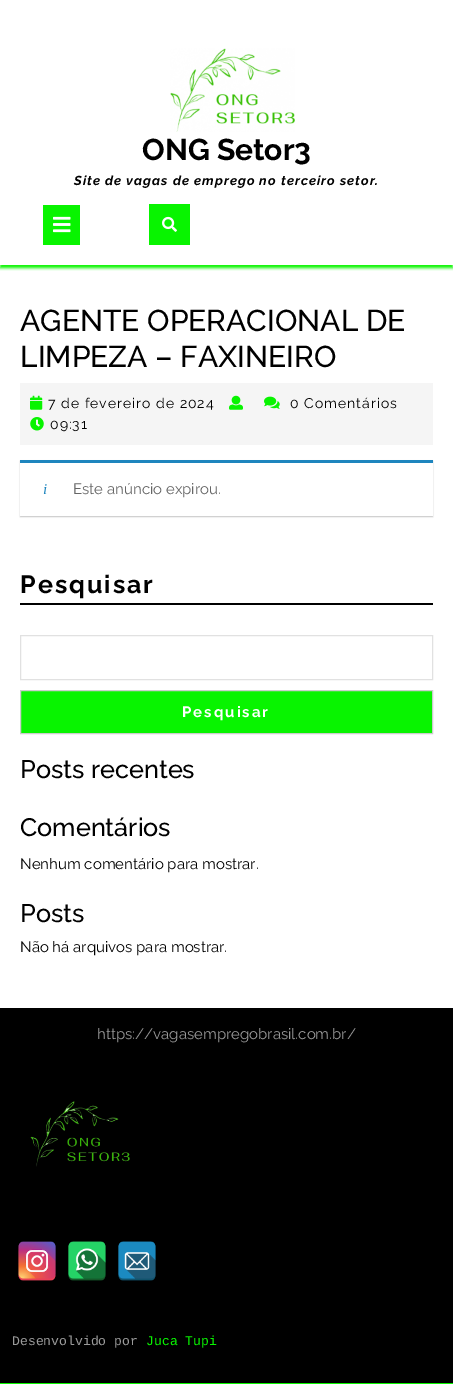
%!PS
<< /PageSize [453 1384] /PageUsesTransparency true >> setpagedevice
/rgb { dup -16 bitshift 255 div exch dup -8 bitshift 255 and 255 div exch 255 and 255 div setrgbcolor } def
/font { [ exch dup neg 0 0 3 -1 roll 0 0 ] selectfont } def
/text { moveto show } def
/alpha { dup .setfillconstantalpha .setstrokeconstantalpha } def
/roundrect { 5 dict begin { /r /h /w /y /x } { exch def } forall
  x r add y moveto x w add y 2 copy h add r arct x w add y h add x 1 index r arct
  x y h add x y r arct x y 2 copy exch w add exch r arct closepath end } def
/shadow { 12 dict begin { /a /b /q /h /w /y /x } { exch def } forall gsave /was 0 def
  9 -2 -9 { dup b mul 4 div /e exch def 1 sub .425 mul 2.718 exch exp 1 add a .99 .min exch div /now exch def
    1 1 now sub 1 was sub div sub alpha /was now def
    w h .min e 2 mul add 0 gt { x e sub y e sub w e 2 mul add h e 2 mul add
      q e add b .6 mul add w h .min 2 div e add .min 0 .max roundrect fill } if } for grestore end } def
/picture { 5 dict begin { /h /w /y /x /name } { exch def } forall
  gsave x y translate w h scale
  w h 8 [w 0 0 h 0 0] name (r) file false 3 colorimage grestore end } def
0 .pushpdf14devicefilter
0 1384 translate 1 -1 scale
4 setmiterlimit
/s1 { /Raleway-Bold 30 font 16#000000 rgb } def
/s2 { /Raleway-Medium 30 font 16#000000 rgb } def
/s3 { /LiberationSerif-Italic 15 font 16#1E85BE rgb } def
/s4 { /Raleway-Regular 15 font 16#666666 rgb } def
/s5 { /Raleway-Medium 25.25 font 16#000000 rgb } def
/s6 { /Raleway-Regular 15 font 16#000000 rgb } def
/s7 { /Raleway-Regular 15 font 16#999999 rgb } def
/s8 { /LiberationMono-Regular 13.1 font 16#999999 rgb } def
/s9 { /LiberationMono-Regular 13.1 font 16#08F400 rgb } def
16#FFFFFF rgb
0 0 453 1384 rectfill
gsave
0 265 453 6 rectclip
16#08F400 rgb
0 29 453 239 0 1.5 1 shadow
grestore
(pic1.raw) 170 48 125 84 picture
s1
(ONG Setor3) 142 160 text
/Raleway-BoldItalic 13 font
74 185 moveto 1 0 (Site de vagas de emprego no terceiro setor.) ashow
16#08F400 rgb
43 205 37 40 rectfill
(pic2.raw) 53 216 18 17 picture
149 204 41 41 rectfill
(pic3.raw) 162 216 15 16 picture
s2
(AGENTE OPERACIONAL DE) 20 331 text
(LIMPEZA – FAXINEIRO) 20 367 text
16#F5F5F5 rgb
20 383 413 62 rectfill
(pic4.raw) 30 395 13 15 picture
/Raleway-Regular 14 font
16#000000 rgb
48 408 moveto 1 0 (7 de fevereiro de 2024) ashow
(pic5.raw) 229 395 14 15 picture
(pic6.raw) 264 396 16 13 picture
290 408 moveto 1 0 (0 Comentários) ashow
(pic7.raw) 30 417 14 14 picture
50 429 moveto 1 0 (09:31) ashow
gsave
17 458 moveto 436 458 lineto 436 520 lineto 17 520 lineto closepath 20 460 moveto 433 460 lineto 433 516 lineto 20 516 lineto closepath eoclip newpath
20 461 413 56 0 0.5 0.2 shadow
grestore
16#1E85BE rgb
20 460 413 3 rectfill
s3
(i) 43 494 text
s4
(Este anúncio expirou.) 73 494 text
16#000000 rgb
20 603 413 2 rectfill
/Raleway-Bold 25 font
20 593 moveto 2 0 (Pesquisar) ashow
16#E1E1E1 rgb
20.5 635.5 412 44 rectstroke
16#08F400 rgb
20.5 690.5 moveto 432.5 690.5 lineto 432.5 733.5 lineto 20.5 733.5 lineto closepath gsave fill grestore
16#CCCCCC rgb
stroke
/Raleway-Bold 15 font
16#FFFFFF rgb
182 717 moveto 2 0 (Pesquisar) ashow
s5
(Posts recentes) 20 778 text
(Comentários) 20 836 text
s6
(Nenhum comentário para mostrar.) 20 869 text
s5
(Posts) 20 922 text
s6
(Não há arquivos para mostrar.) 20 952 text
0 1008 453 375 rectfill
s7
(https://vagasempregobrasil.com.br/) 97 1039 text
(pic8.raw) 30 1101 100 66 picture
(pic9.raw) 18 1241 38 40 picture
(pic10.raw) 68 1241 38 40 picture
(pic11.raw) 118 1241 38 40 picture
s8
(Desenvolvido por) 12 1345 text
s9
(Juca Tupi) 146 1345 text
0 1383 453 1 rectfill
.poppdf14devicefilter showpage
